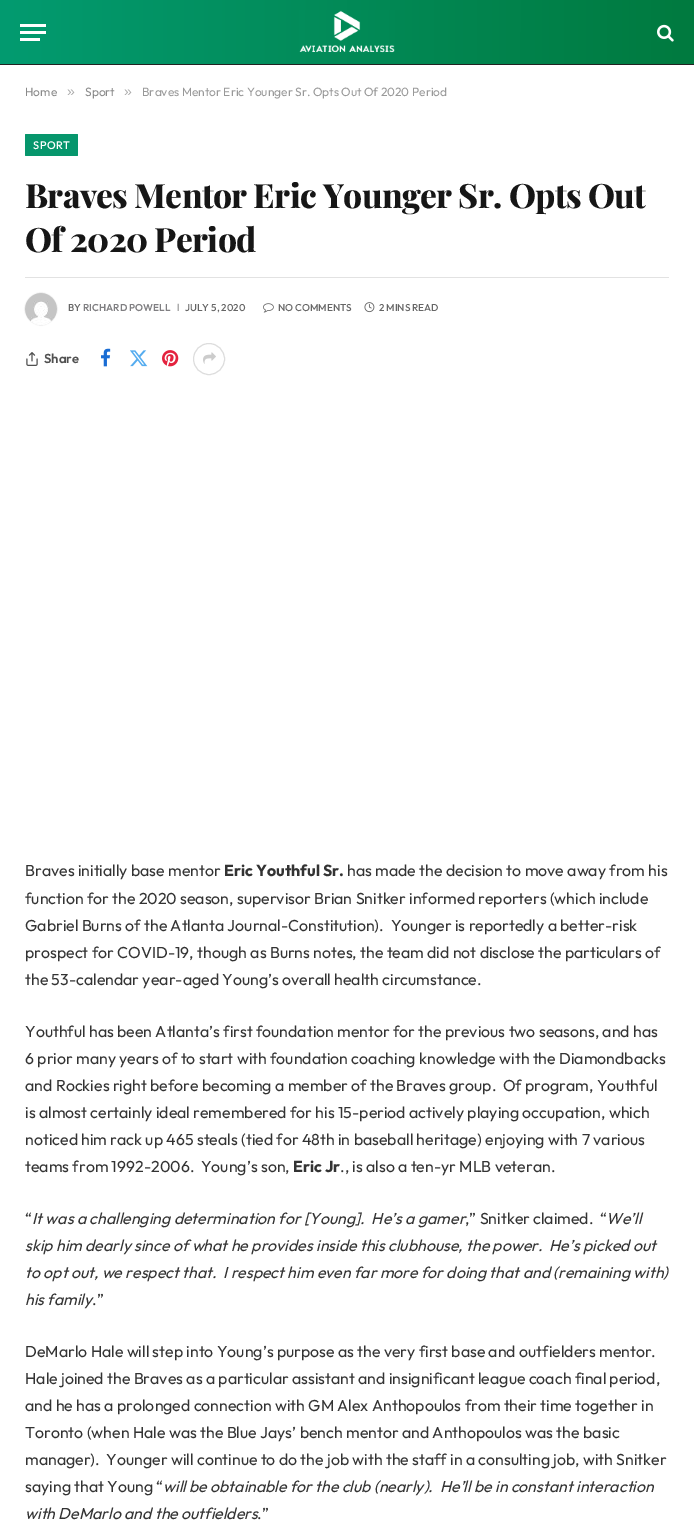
%!PS
<< /PageSize [694 1536] /PageUsesTransparency true >> setpagedevice
/rgb { dup -16 bitshift 255 div exch dup -8 bitshift 255 and 255 div exch 255 and 255 div setrgbcolor } def
/font { [ exch dup neg 0 0 3 -1 roll 0 0 ] selectfont } def
/text { moveto show } def
/alpha { dup .setfillconstantalpha .setstrokeconstantalpha } def
/circle { newpath 0 360 arc closepath } def
/roundrect { 5 dict begin { /r /h /w /y /x } { exch def } forall
  x r add y moveto x w add y 2 copy h add r arct x w add y h add x 1 index r arct
  x y h add x y r arct x y 2 copy exch w add exch r arct closepath end } def
/shadow { 12 dict begin { /a /b /q /h /w /y /x } { exch def } forall gsave /was 0 def
  9 -2 -9 { dup b mul 4 div /e exch def 1 sub .425 mul 2.718 exch exp 1 add a .99 .min exch div /now exch def
    1 1 now sub 1 was sub div sub alpha /was now def
    w h .min e 2 mul add 0 gt { x e sub y e sub w e 2 mul add h e 2 mul add
      q e add b .6 mul add w h .min 2 div e add .min 0 .max roundrect fill } if } for grestore end } def
/picture { 5 dict begin { /h /w /y /x /name } { exch def } forall
  gsave x y translate w h scale
  w h 8 [w 0 0 h 0 0] name (r) file false 3 colorimage grestore end } def
0 .pushpdf14devicefilter
0 1536 translate 1 -1 scale
4 setmiterlimit
/s1 { /Outfit-Regular 12 font 16#8A8A8A rgb } def
/s2 { /LiberationSans-Regular 14 font 16#ADADAD rgb } def
/s3 { /Outfit-Regular 12 font 16#999999 rgb } def
/s4 { /Outfit-Medium 10 font 16#666666 rgb } def
/s5 { /Outfit-SemiBold 10 font 16#807F82 rgb } def
/s6 { /Outfit-Medium 8 font 16#666666 rgb } def
/s7 { /Outfit-SemiBold 13 font 16#505050 rgb } def
/s8 { /Outfit-Regular 15.95 font 16#333333 rgb } def
/s9 { /Outfit-Bold 15.95 font 16#333333 rgb } def
/s10 { /Outfit-Italic 15.95 font 16#333333 rgb } def
16#FFFFFF rgb
0 0 694 1536 rectfill
gsave 0 0 moveto 694 0 lineto 694 64 lineto 0 64 lineto closepath clip newpath
<< /ShadingType 2 /ColorSpace /DeviceRGB /Coords [0 32 694 32] /Extend [true true] /Function << /FunctionType 2 /Domain [0 1] /C0 [0.012 0.608 0.439] /C1 [0 0.478 0.247] /N 1 >> >> shfill grestore
16#222222 rgb
0 64 694 1 rectfill
16#FFFFFF rgb
20 38 20 3 rectfill
20 24 26 3 rectfill
20 31 26 3 rectfill
(pic1.raw) 299 10 96 43 picture
(pic2.raw) 657 24 17 18 picture
s1
(Home) 25 96 text
s2
(») 67 96 text
s1
(Sport) 85 96 text
s2
(») 124 96 text
s3
(Braves Mentor Eric Younger Sr. Opts Out Of 2020 Period) 142 96 text
16#06966C rgb
25 134 53 22 1 roundrect fill
/Outfit-Medium 11 font
16#FFFFFF rgb
33 149 moveto 0.5 0 (SPORT) ashow
/PlayfairDisplay-ExtraBold 33.5 font
16#161616 rgb
25 208 moveto -0.65 0 (Braves Mentor Eric Younger Sr. Opts Out) ashow
25 252 moveto -0.65 0 (Of 2020 Period) ashow
16#E2E2E2 rgb
25 277 644 1 rectfill
16#000000 rgb
25 293 32 32 16 0.5 0.2 shadow
(pic3.raw) 25 293 32 32 picture
s4
(BY) 68 311 text
s5
(RICHARD POWELL) 83 311 text
s6
(|) 177 310 text
s4
(JULY 5, 2020) 185 311 text
(pic4.raw) 263 303 11 10 picture
(NO COMMENTS) 278 311 text
(pic5.raw) 364 302 11 11 picture
(2 MINS READ) 379 311 text
(pic6.raw) 26 352 12 14 picture
s7
(Share) 44 363 text
(pic7.raw) 101 348 10 19 picture
(pic8.raw) 130 350 18 17 picture
(pic9.raw) 162 350 17 17 picture
16#DDDDDD rgb
209 359 15.5 circle stroke
(pic10.raw) 203 352 13 12 picture
s8
(Braves initially base mentor) 25 876 text
s9
(Eric Youthful Sr.) 224 876 text
s8
(has made the decision to move away from his) 347 876 text
(function for the 2020 season, supervisor Brian Snitker informed reporters \(which include) 25 904 text
(Gabriel Burns of the Atlanta Journal-Constitution\).  Younger is reportedly a better-risk) 25 931 text
(prospect for COVID-19, though as Burns notes, the team did not disclose the particulars of) 25 958 text
(the 53-calendar year-aged Young’s overall health circumstance.) 25 985 text
(Youthful has been Atlanta’s first foundation mentor for the previous two seasons, and has) 25 1037 text
(6 prior many years of to start with foundation coaching knowledge with the Diamondbacks) 25 1064 text
(and Rockies right before becoming a member of the Braves group.  Of program, Youthful) 25 1091 text
(is almost certainly ideal remembered for his 15-period actively playing occupation, which) 25 1118 text
(noticed him rack up 465 steals \(tied for 48th in baseball heritage\) enjoying with 7 various) 25 1145 text
(teams from 1992-2006.  Young’s son,) 25 1172 text
s9
(Eric Jr) 293 1172 text
s8
(., is also a ten-yr MLB veteran.) 340 1172 text
(“) 25 1224 text
s10
(It was a challenging determination for [Young].  He’s a gamer) 32 1224 text
s8
(,” Snitker claimed.  “) 465 1224 text
s10
(We’ll) 606 1224 text
(skip him dearly since of what he provides inside this clubhouse, the power.  He’s picked out) 25 1251 text
(to opt out, we respect that.  I respect him even far more for doing that and \(remaining with\)) 25 1278 text
(his family) 25 1305 text
s8
(.”) 92 1305 text
(DeMarlo Hale will step into Young’s purpose as the very first base and outfielders mentor.) 25 1357 text
(Hale joined the Braves as a particular assistant and insignificant league coach final period,) 25 1384 text
(and he has a prolonged connection with GM Alex Anthopoulos from their time together in) 25 1411 text
(Toronto \(when Hale was the Blue Jays’ bench mentor and Anthopoulos was the basic) 25 1438 text
(manager\).  Younger will continue to do the job with the staff in a consulting job, with Snitker) 25 1465 text
(saying that Young “) 25 1492 text
s10
(will be obtainable for the club \(nearly\).  He’ll be in constant interaction) 163 1492 text
(with DeMarlo and the outfielders) 25 1519 text
s8
(.”) 257 1519 text
.poppdf14devicefilter showpage
